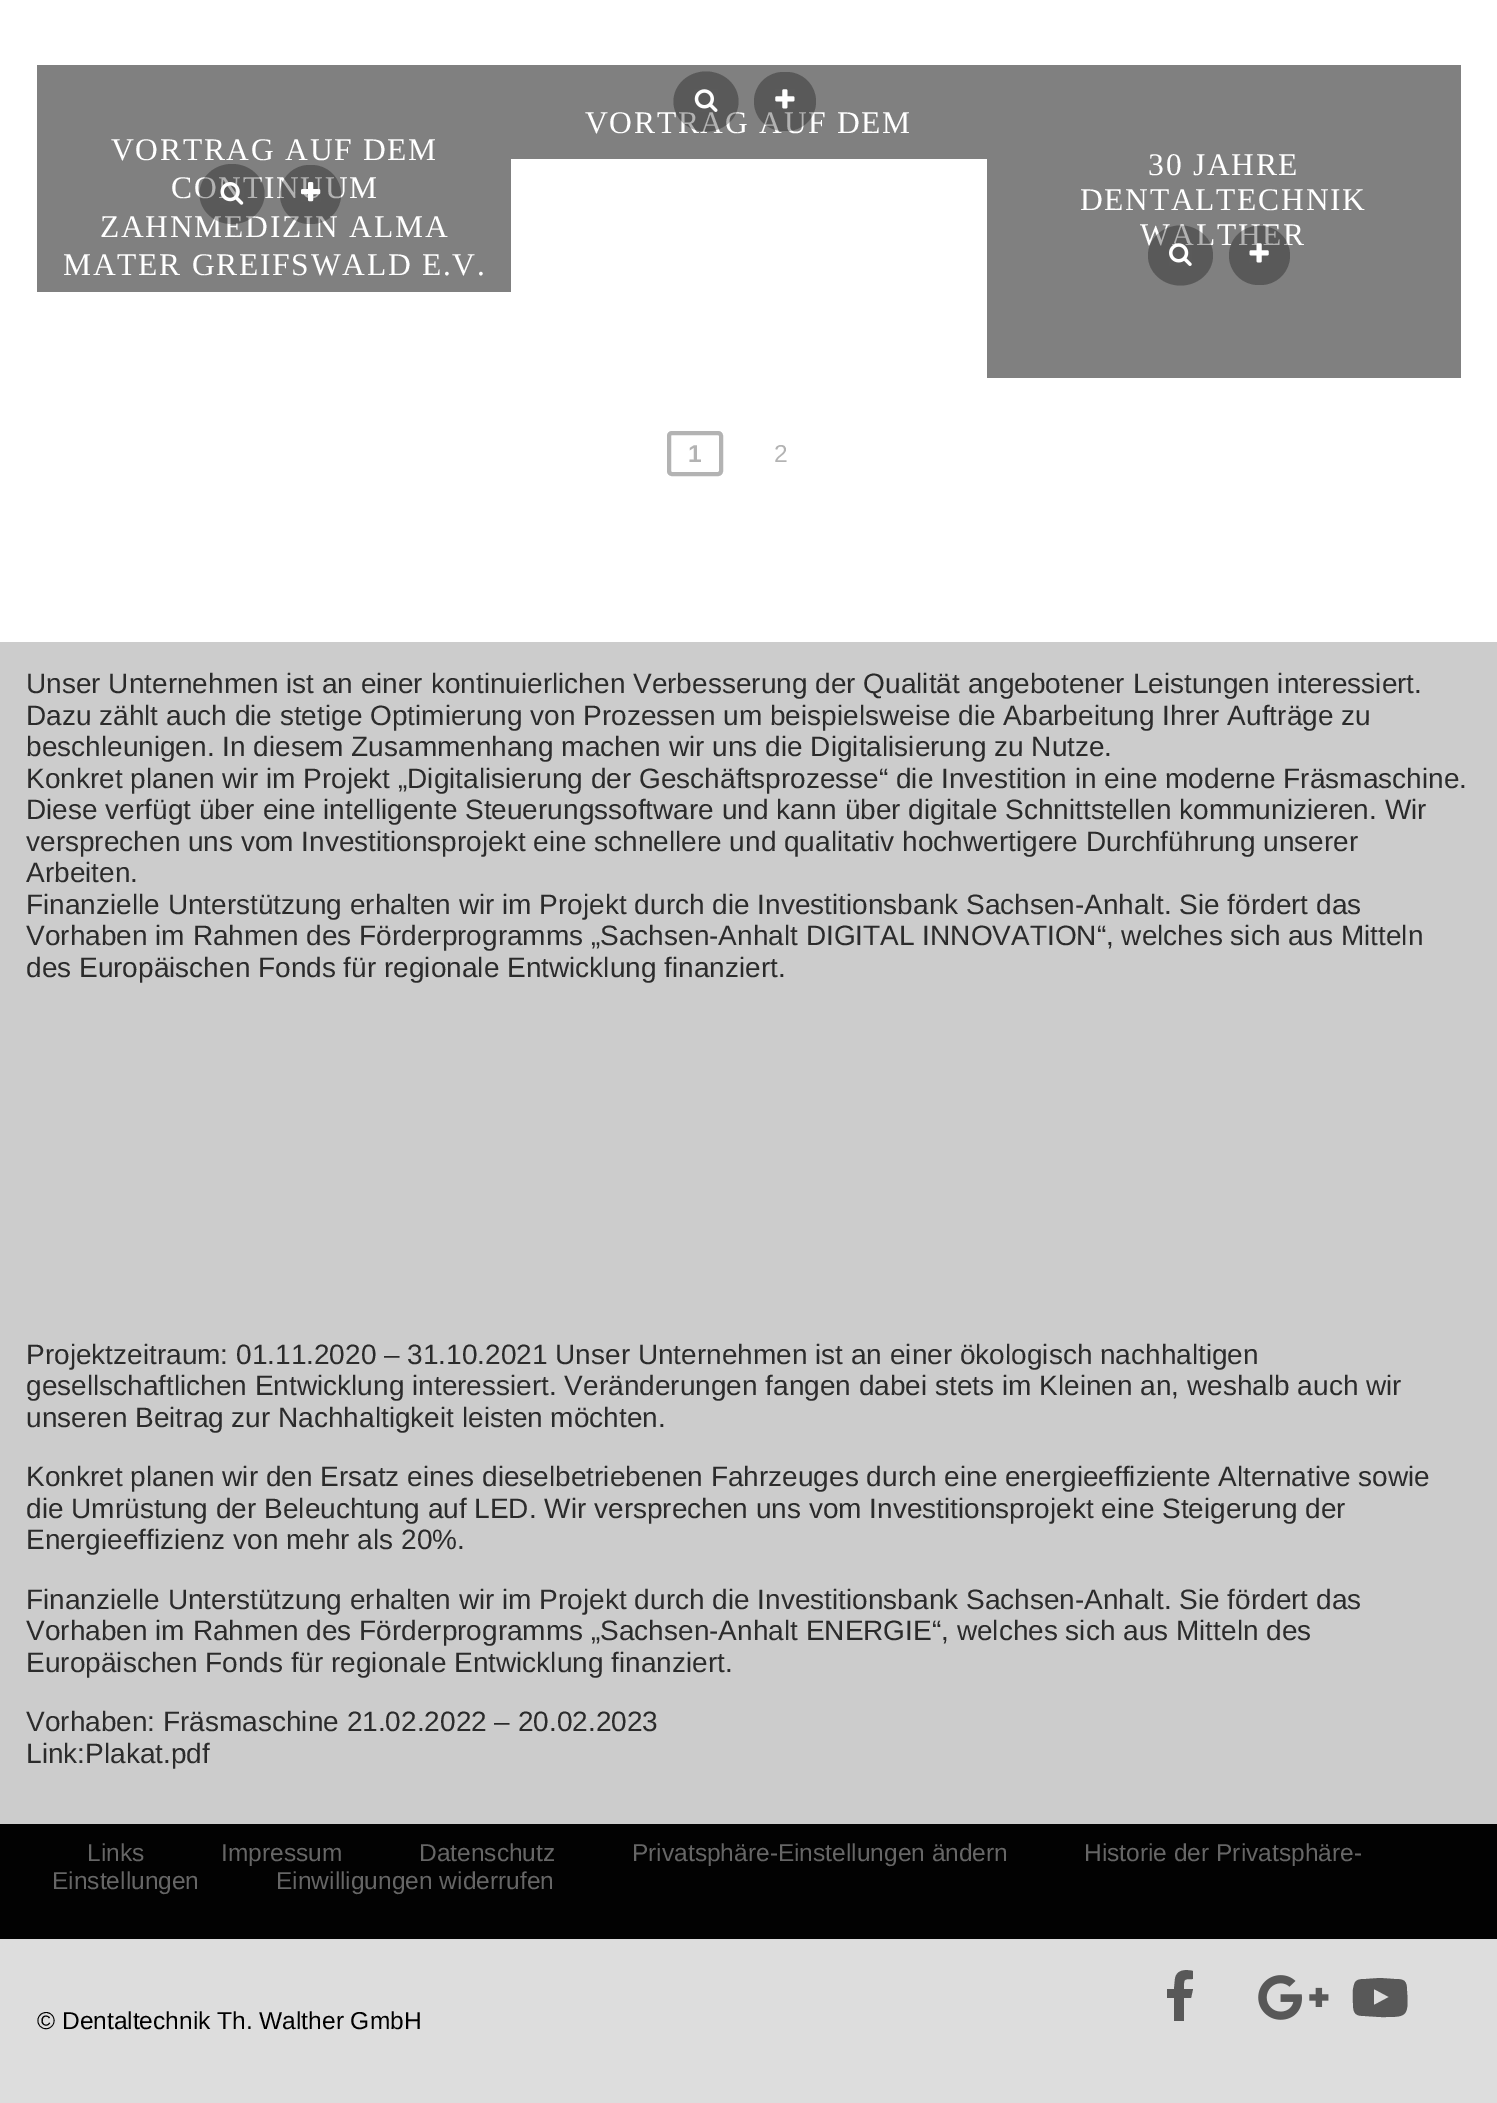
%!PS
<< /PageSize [1497 2103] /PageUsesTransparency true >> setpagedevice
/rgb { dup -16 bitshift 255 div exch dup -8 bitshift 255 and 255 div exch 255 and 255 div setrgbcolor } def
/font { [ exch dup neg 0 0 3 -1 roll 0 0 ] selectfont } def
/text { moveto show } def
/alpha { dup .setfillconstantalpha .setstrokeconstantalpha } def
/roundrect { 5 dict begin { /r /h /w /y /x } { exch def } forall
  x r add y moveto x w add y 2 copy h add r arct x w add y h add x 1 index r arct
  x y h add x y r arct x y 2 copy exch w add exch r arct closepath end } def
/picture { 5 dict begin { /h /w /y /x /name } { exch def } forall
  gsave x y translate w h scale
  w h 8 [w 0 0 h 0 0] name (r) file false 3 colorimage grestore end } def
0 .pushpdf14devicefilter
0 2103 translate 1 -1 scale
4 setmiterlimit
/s1 { /LiberationSans-Bold 24.5 font 16#B3B3B3 rgb } def
/s2 { /LiberationSans-Regular 24.5 font 16#B3B3B3 rgb } def
/s3 { /LiberationSans-Regular 28 font 16#2B2B2B rgb } def
/s4 { /LiberationSans-Regular 24.5 font 16#666666 rgb } def
/s5 { /LiberationSans-Regular 24.5 font 16#000000 rgb } def
16#CCCCCC rgb
0 0 1497 2103 rectfill
16#FFFFFF rgb
0 0 1497 642 rectfill
16#808080 rgb
511 65 476 94 rectfill
/LiberationSerif-Regular 31.5 font
16#FFFFFF rgb
585 133 moveto 1.75 0 (VORTRAG AUF DEM) ashow
0.3 alpha
16#000000 rgb
706 71.5 moveto 724 71.5 738.5 85 738.5 101.5 curveto 738.5 118 724 131.5 706 131.5 curveto 688 131.5 673.5 118 673.5 101.5 curveto 673.5 85 688 71.5 706 71.5 curveto closepath fill
1 alpha
(pic1.raw) 694 89 24 23 picture
0.3 alpha
754 72 62 59 29.5 roundrect fill
1 alpha
(pic2.raw) 775 89 20 20 picture
16#808080 rgb
37 65 474 227 rectfill
16#FFFFFF rgb
111 160 moveto 1.75 0 (VORTRAG AUF DEM) ashow
171 198 moveto 1.75 0 (CONTINUUM) ashow
100 237 moveto 1.75 0 (ZAHNMEDIZIN ALMA) ashow
63 275 moveto 1.75 0 (MATER GREIFSWALD E.V.) ashow
0.3 alpha
16#000000 rgb
232 164 moveto 250 164 264.5 177.5 264.5 194 curveto 264.5 210.5 250 224 232 224 curveto 214 224 199.5 210.5 199.5 194 curveto 199.5 177.5 214 164 232 164 curveto closepath fill
1 alpha
(pic3.raw) 220 182 24 23 picture
0.3 alpha
280 165 61 59 29.5 roundrect fill
1 alpha
(pic4.raw) 301 182 20 20 picture
16#808080 rgb
987 65 474 313 rectfill
16#FFFFFF rgb
1148 175 moveto 1.75 0 (30 JAHRE) ashow
1080 210 moveto 1.75 0 (DENTALTECHNIK) ashow
1140 245 moveto 1.75 0 (WALTHER) ashow
0.3 alpha
16#000000 rgb
1180.5 225.5 moveto 1198.5 225.5 1213 239 1213 255.5 curveto 1213 272 1198.5 285.5 1180.5 285.5 curveto 1162.5 285.5 1148 272 1148 255.5 curveto 1148 239 1162.5 225.5 1180.5 225.5 curveto closepath fill
1 alpha
(pic5.raw) 1169 243 23 23 picture
0.3 alpha
1229 226 61 59 29.5 roundrect fill
1 alpha
(pic6.raw) 1249 243 20 20 picture
16#B3B3B3 rgb
4 setlinewidth
669 433 52 41 3 roundrect stroke
s1
(1) 688 462 text
s2
(2) 774 462 text
s3
(Unser Unternehmen ist an einer kontinuierlichen Verbesserung der Qualität angebotener Leistungen interessiert.) 26 693 text
(Dazu zählt auch die stetige Optimierung von Prozessen um beispielsweise die Abarbeitung Ihrer Aufträge zu) 26 725 text
(beschleunigen. In diesem Zusammenhang machen wir uns die Digitalisierung zu Nutze.) 26 756 text
(Konkret planen wir im Projekt „Digitalisierung der Geschäftsprozesse“ die Investition in eine moderne Fräsmaschine.) 26 788 text
(Diese verfügt über eine intelligente Steuerungssoftware und kann über digitale Schnittstellen kommunizieren. Wir) 26 819 text
(versprechen uns vom Investitionsprojekt eine schnellere und qualitativ hochwertigere Durchführung unserer) 26 851 text
(Arbeiten.) 26 882 text
(Finanzielle Unterstützung erhalten wir im Projekt durch die Investitionsbank Sachsen-Anhalt. Sie fördert das) 26 914 text
(Vorhaben im Rahmen des Förderprogramms „Sachsen-Anhalt DIGITAL INNOVATION“, welches sich aus Mitteln) 26 945 text
(des Europäischen Fonds für regionale Entwicklung finanziert.) 26 977 text
(Projektzeitraum: 01.11.2020 – 31.10.2021 Unser Unternehmen ist an einer ökologisch nachhaltigen) 26 1364 text
(gesellschaftlichen Entwicklung interessiert. Veränderungen fangen dabei stets im Kleinen an, weshalb auch wir) 26 1395 text
(unseren Beitrag zur Nachhaltigkeit leisten möchten.) 26 1427 text
(Konkret planen wir den Ersatz eines dieselbetriebenen Fahrzeuges durch eine energieeffiziente Alternative sowie) 26 1486 text
(die Umrüstung der Beleuchtung auf LED. Wir versprechen uns vom Investitionsprojekt eine Steigerung der) 26 1518 text
(Energieeffizienz von mehr als 20%.) 26 1549 text
(Finanzielle Unterstützung erhalten wir im Projekt durch die Investitionsbank Sachsen-Anhalt. Sie fördert das) 26 1609 text
(Vorhaben im Rahmen des Förderprogramms „Sachsen-Anhalt ENERGIE“, welches sich aus Mitteln des) 26 1640 text
(Europäischen Fonds für regionale Entwicklung finanziert.) 26 1672 text
(Vorhaben: Fräsmaschine 21.02.2022 – 20.02.2023) 26 1731 text
(Link:Plakat.pdf) 26 1763 text
16#020202 rgb
0 1824 1497 115 rectfill
s4
(Links) 87 1861 text
(Impressum) 221 1861 text
(Datenschutz) 419 1861 text
(Privatsphäre-Einstellungen ändern) 632 1861 text
(Historie der Privatsphäre-) 1084 1861 text
(Einstellungen) 52 1889 text
(Einwilligungen widerrufen) 276 1889 text
16#DDDDDD rgb
0 1939 1497 164 rectfill
s5
(© Dentaltechnik Th. Walther GmbH) 37 2029 text
16#585858 rgb
1193 1971 moveto 1185 1969 1176 1970 1175 1979 curveto 1174 1989 lineto 1167 1989 lineto 1167 1998 lineto 1174 1998 lineto 1174 2021 lineto 1184 2021 lineto 1184 1998 lineto 1191 1998 lineto 1193 1989 lineto 1184 1989 lineto 1184 1979 1183 1979 1193 1979 curveto closepath fill
(pic7.raw) 1258 1975 71 45 picture
1374 2005 moveto 1374 1989 lineto 1389 1997 lineto closepath 1380 1978 moveto 1366 1979 lineto 1361 1979 1355 1979 1354 1985 curveto 1352 1991 1353 1998 1353 2004 curveto 1353 2014 1356 2016 1365 2016 curveto 1380 2017 lineto 1406 2017 1409 2018 1407 1991 curveto 1407 1980 1404 1979 1394 1979 curveto closepath fill
.poppdf14devicefilter showpage
